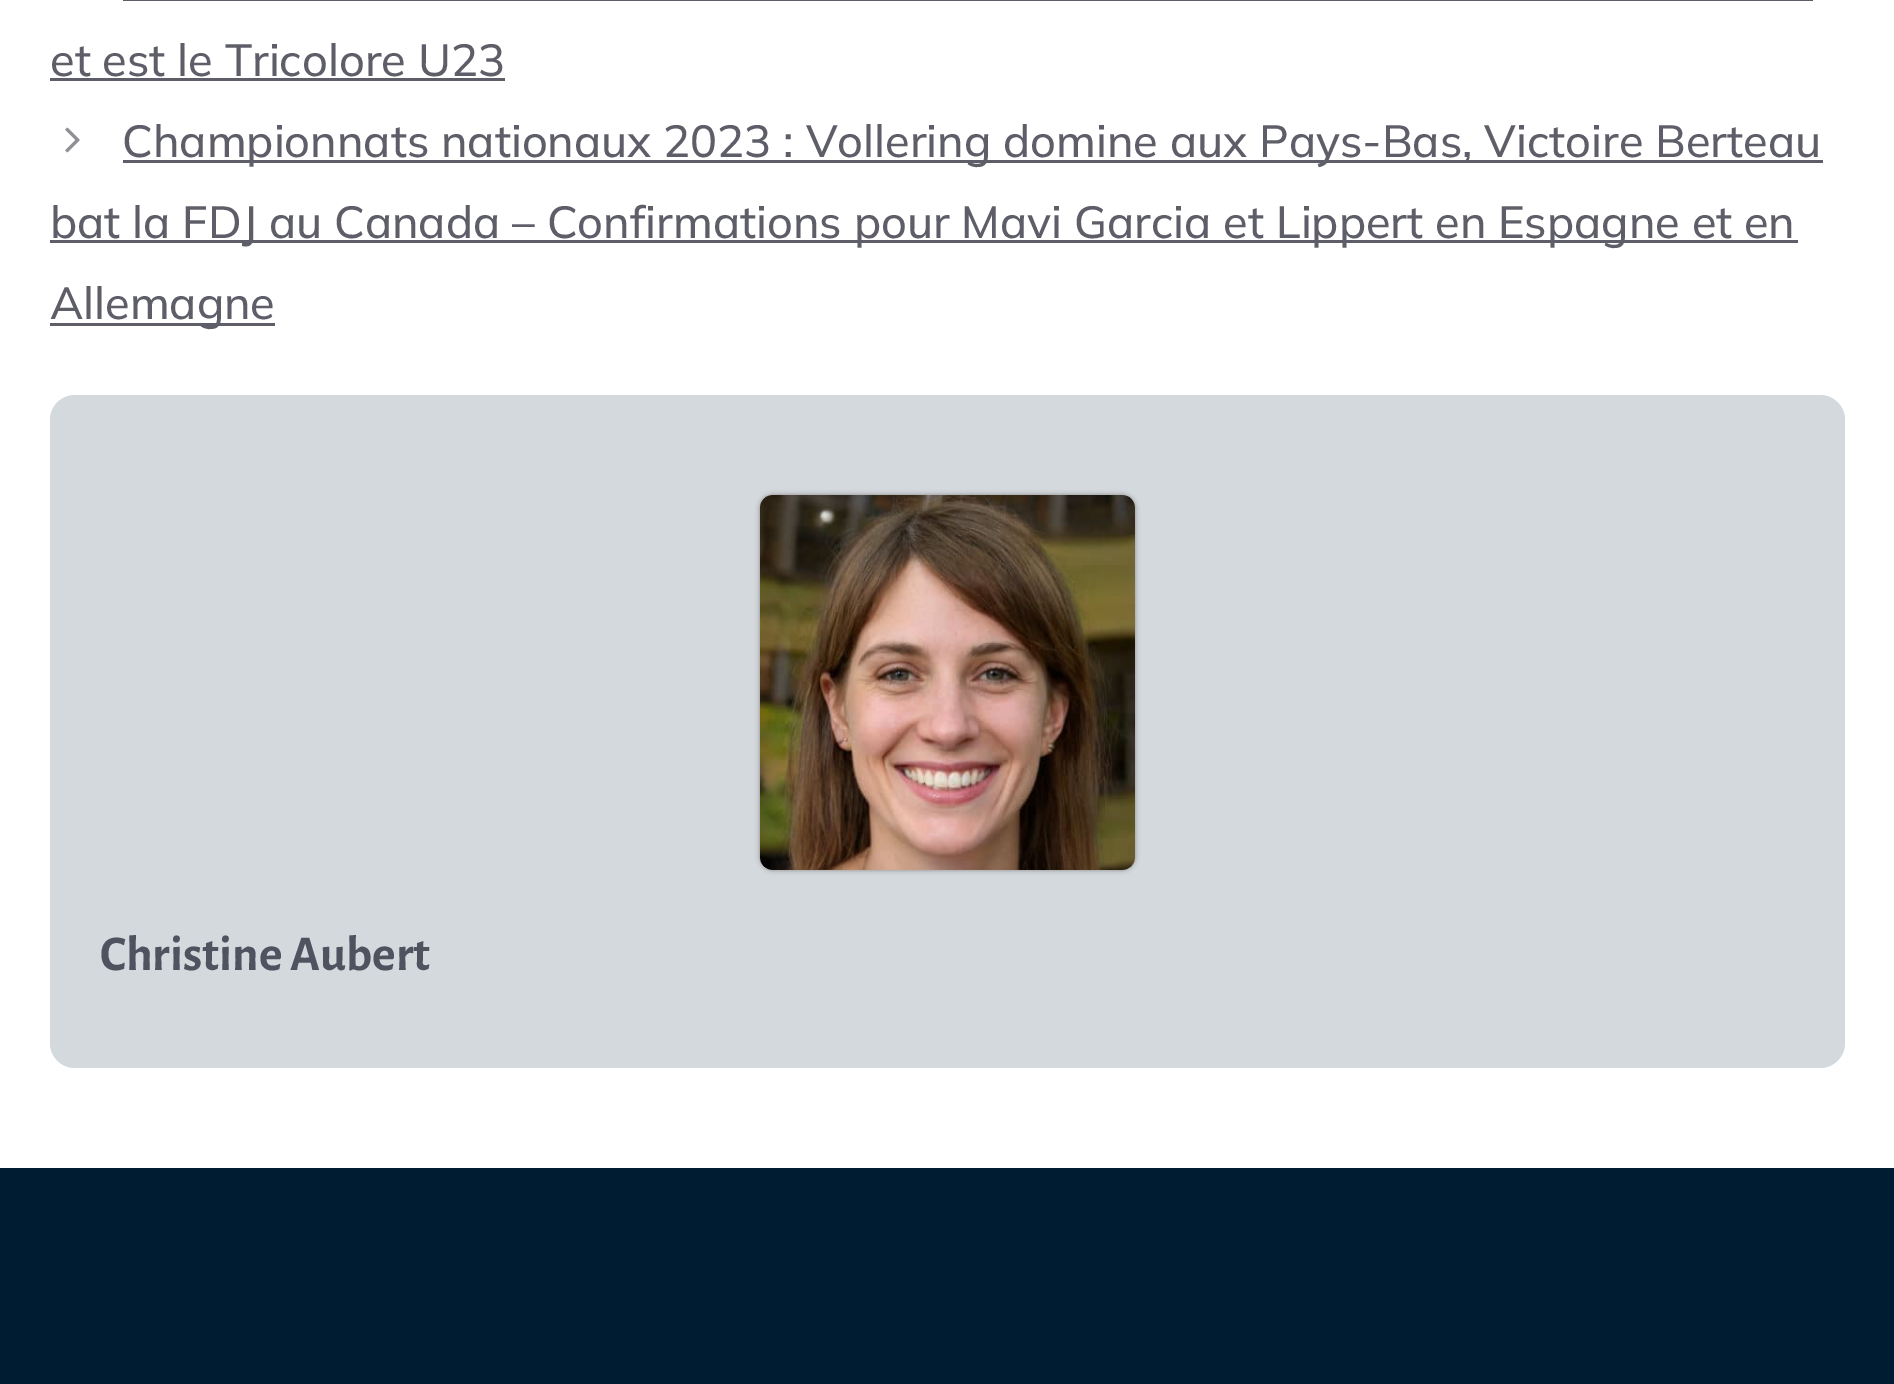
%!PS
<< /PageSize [1894 1384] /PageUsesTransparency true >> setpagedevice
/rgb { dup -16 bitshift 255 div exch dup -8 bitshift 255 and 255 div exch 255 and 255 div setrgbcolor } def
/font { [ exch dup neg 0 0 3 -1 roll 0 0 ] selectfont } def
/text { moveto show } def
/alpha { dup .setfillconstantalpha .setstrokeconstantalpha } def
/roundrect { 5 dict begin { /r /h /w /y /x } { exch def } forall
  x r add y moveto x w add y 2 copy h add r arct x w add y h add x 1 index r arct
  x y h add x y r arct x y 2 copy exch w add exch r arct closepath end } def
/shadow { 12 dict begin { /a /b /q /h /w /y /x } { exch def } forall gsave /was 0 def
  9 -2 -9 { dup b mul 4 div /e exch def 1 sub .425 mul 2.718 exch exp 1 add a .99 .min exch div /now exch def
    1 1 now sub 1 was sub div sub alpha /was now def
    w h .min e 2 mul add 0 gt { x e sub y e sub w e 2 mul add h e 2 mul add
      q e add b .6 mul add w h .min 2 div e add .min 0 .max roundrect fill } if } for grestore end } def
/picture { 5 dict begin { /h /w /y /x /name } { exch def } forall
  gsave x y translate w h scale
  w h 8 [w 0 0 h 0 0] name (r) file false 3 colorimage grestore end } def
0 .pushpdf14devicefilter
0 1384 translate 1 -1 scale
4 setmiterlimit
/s1 { /Mulish-Medium 45 font 16#5E5E69 rgb } def
/s2 { /AlegreyaSans-Bold 50 font 16#515260 rgb } def
16#FFFFFF rgb
0 0 1894 1384 rectfill
s1
(et est le Tricolore U23) 50 76 text
123 0 1690 1 rectfill
50 78 455 3 rectfill
(pic1.raw) 65 127 15 26 picture
123 160 1700 3 rectfill
(Championnats nationaux 2023 : Vollering domine aux Pays-Bas, Victoire Berteau) 122 157 text
50 240 1748 3 rectfill
(bat la FDJ au Canada – Confirmations pour Mavi Garcia et Lippert en Espagne et en) 50 238 text
50 323 225 3 rectfill
(Allemagne) 50 319 text
16#D4D9DD rgb
50 395 1795 673 25 roundrect fill
16#888888 rgb
760 495 375 375 13 2.5 1 shadow
(pic2.raw) 760 495 375 375 picture
s2
(Christine Aubert) 100 970 text
16#001C32 rgb
0 1168 1894 216 rectfill
.poppdf14devicefilter showpage
